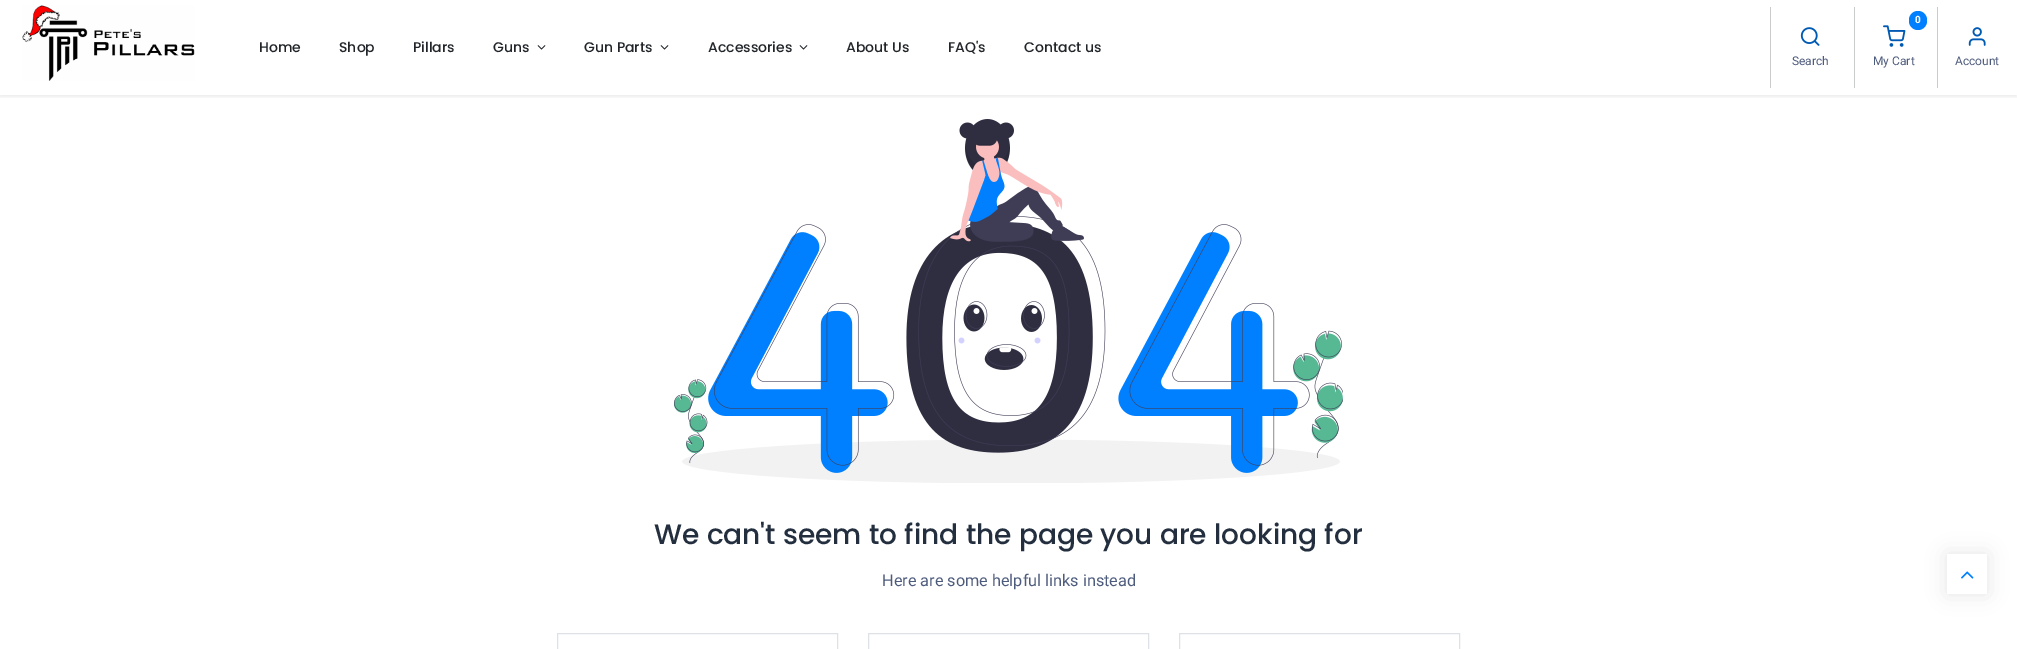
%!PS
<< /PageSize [2017 649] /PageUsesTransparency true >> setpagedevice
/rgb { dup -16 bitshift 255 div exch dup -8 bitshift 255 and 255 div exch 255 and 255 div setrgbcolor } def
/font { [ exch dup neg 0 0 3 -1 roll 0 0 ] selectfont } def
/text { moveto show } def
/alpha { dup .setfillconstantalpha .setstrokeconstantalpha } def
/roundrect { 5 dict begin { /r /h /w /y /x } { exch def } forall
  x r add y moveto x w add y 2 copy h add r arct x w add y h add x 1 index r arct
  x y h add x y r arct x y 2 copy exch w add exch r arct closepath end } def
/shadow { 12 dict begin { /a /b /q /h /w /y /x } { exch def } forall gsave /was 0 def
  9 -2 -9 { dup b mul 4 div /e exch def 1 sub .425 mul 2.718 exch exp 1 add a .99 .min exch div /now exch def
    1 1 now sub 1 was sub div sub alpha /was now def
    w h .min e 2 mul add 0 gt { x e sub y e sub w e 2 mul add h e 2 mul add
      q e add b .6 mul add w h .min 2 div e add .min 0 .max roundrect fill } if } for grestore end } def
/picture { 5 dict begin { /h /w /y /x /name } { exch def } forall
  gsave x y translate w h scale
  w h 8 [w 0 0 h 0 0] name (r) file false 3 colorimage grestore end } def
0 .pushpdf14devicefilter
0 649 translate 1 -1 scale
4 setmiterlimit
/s1 { /Poppins-Medium 14 font 16#212529 rgb } def
/s2 { /Roboto-Regular 12 font 16#4D5B7C rgb } def
/s3 { /Roboto-Bold 10 font 16#FFFFFF rgb } def
/s4 { /Poppins-Medium 28 font 16#232F3E rgb } def
/s5 { /Roboto-Regular 16.25 font 16#4D5B7C rgb } def
16#FFFFFF rgb
0 0 2017 649 rectfill
gsave
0 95 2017 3 rectclip
16#000000 rgb
0 2 2017 95 0 2 0.07 shadow
grestore
(pic1.raw) 22 5 173 76 picture
s1
(Home) 259 52 text
(Shop) 339 52 text
(Pillars) 413 52 text
(Guns) 493 52 text
(pic2.raw) 537 45 9 5 picture
(Gun Parts) 584 52 text
(pic2.raw) 660 45 9 5 picture
(Accessories) 708 52 text
(pic2.raw) 799 45 9 5 picture
(About Us) 846 52 text
(FAQ's) 948 52 text
(Contact us) 1024 52 text
16#CACBCB rgb
1770 7 1 81 rectfill
(pic3.raw) 1800 27 20 19 picture
s2
(Search) 1792 65 text
16#CACBCB rgb
1854 7 1 81 rectfill
16#0080FF rgb
1909 11 18 19 9 roundrect fill
s3
(0) 1915 23 text
(pic4.raw) 1883 25 23 22 picture
s2
(My Cart) 1873 65 text
16#CACBCB rgb
1937 7 1 81 rectfill
(pic5.raw) 1968 27 18 19 picture
s2
(Account) 1955 65 text
(pic6.raw) 674 119 669 364 picture
s4
(We can't seem to find the page you are looking for) 654 544 text
s5
(Here are some helpful links instead) 882 586 text
16#DEE2E6 rgb
557.5 633.5 280 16 rectstroke
868.5 633.5 280 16 rectstroke
1179.5 633.5 280 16 rectstroke
gsave
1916 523 moveto 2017 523 lineto 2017 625 lineto 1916 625 lineto closepath 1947 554 moveto 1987 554 lineto 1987 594 lineto 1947 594 lineto closepath eoclip newpath
16#000000 rgb
1947 554 40 40 0 10 0.1 shadow
grestore
(pic7.raw) 1961 571 13 8 picture
.poppdf14devicefilter showpage
